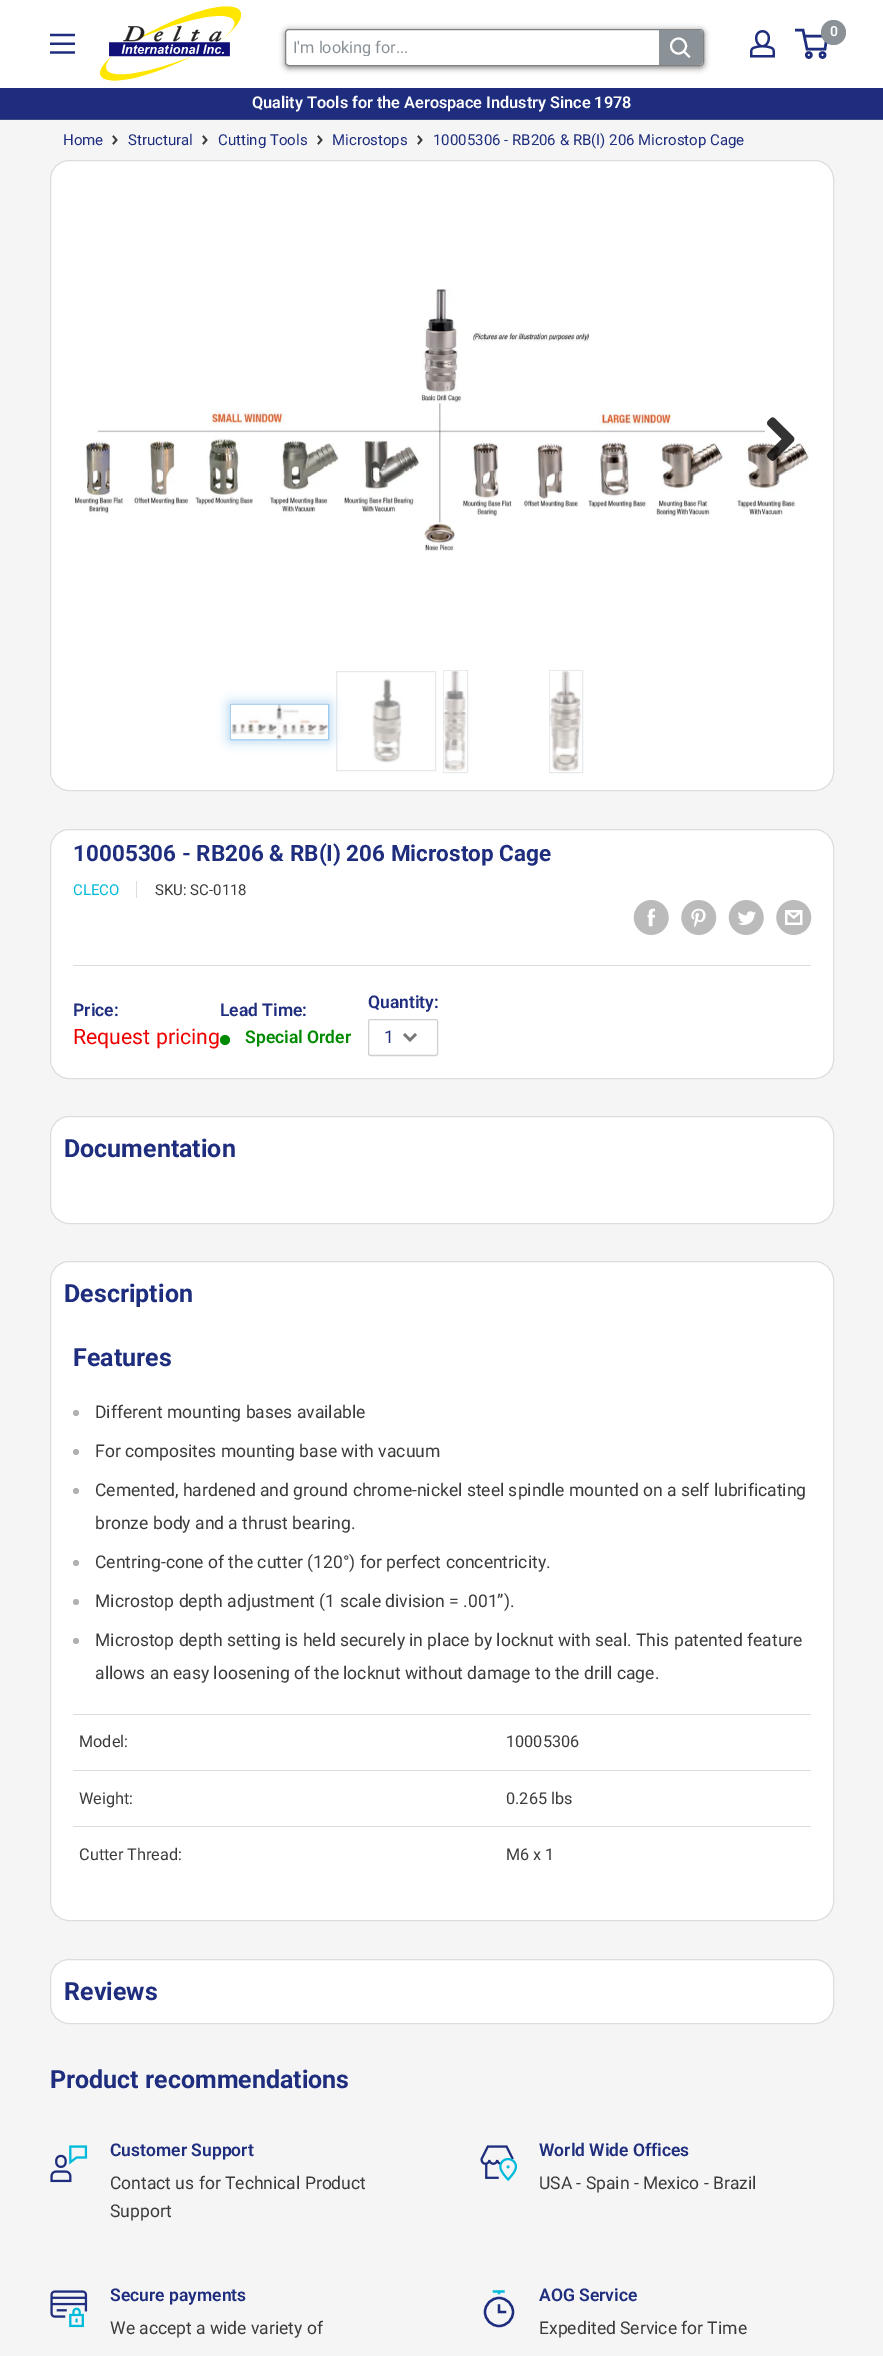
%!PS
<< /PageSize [883 2356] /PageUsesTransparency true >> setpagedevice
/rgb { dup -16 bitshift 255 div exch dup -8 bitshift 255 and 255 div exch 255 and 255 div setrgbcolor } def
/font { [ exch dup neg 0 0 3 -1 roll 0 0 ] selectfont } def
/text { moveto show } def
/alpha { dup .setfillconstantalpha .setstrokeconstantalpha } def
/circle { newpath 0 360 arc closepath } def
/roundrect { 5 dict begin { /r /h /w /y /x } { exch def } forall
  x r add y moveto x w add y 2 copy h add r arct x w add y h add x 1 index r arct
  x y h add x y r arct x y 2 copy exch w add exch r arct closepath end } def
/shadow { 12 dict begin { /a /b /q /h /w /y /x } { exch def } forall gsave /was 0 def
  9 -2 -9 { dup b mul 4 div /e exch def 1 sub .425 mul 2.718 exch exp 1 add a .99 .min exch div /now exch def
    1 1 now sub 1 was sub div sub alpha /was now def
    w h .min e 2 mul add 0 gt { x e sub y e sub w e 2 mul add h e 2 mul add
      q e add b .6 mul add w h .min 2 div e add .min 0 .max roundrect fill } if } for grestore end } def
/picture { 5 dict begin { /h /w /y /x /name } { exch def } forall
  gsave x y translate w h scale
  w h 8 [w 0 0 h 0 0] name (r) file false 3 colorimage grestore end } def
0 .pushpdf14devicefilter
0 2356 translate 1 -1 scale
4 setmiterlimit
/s1 { /Roboto-SemiBold 14 font 16#FFFFFF rgb } def
/s2 { /Roboto-Regular 16.25 font 16#8A9297 rgb } def
/s3 { /Roboto-SemiBold 16.25 font 16#FFFFFF rgb } def
/s4 { /Roboto-Regular 15 font 16#1E2D7D rgb } def
/s5 { /Roboto-Bold 22.5 font 16#1E2D7D rgb } def
/s6 { /Roboto-Regular 15 font 16#00BADB rgb } def
/s7 { /Roboto-Regular 15 font 16#3B3B3B rgb } def
/s8 { /Roboto-SemiBold 17.5 font 16#1E2D7D rgb } def
/s9 { /Roboto-Regular 21.25 font 16#EE0000 rgb } def
/s10 { /Roboto-SemiBold 17.5 font 16#008A00 rgb } def
/s11 { /Roboto-Regular 17.5 font 16#1E2D7D rgb } def
/s12 { /Roboto-Bold 25 font 16#1E2D7D rgb } def
/s13 { /Roboto-Regular 17.5 font 16#3B3B3B rgb } def
/s14 { /Roboto-Regular 16.25 font 16#3B3B3B rgb } def
16#F5F5F5 rgb
0 0 883 2356 rectfill
16#FFFFFF rgb
0 0 883 88 rectfill
(pic1.raw) 100 6 141 75 picture
(pic2.raw) 750 30 25 28 picture
16#1E2D7D rgb
2.5 setlinewidth
808.8 55 2.5 circle stroke
822.5 55 2.5 circle stroke
804 36 moveto 827 36 lineto 825 49 lineto 807 49 lineto 803 30 lineto 795 30 lineto stroke
16#8A9297 rgb
833.5 32.5 12.5 circle fill
s1
(0) 830 36 text
(pic3.raw) 50 33 25 21 picture
16#828282 rgb
285 30 419 38 4 3 1 shadow
16#FFFFFF rgb
285.5 29.5 418 36 3.5 roundrect gsave fill grestore
16#828282 rgb
1 setlinewidth
stroke
gsave
293 38 360 18 rectclip
s2
(I'm looking for...) 293 53 text
grestore
16#8A9297 rgb
659 30 moveto 699 30 lineto 701 30 703 32 703 34 curveto 703 61 lineto 703 63 701 65 699 65 curveto 659 65 lineto closepath fill
16#FFFFFF rgb
2 setlinewidth
2 setlinecap
689 56.5 moveto 684 51.5 lineto stroke
0 setlinecap
678.5 46 7.5 circle stroke
16#1E2D7D rgb
0 88 883 31 rectfill
16#3E4B85 rgb
0 119 883 1 rectfill
s3
(Quality Tools for the Aerospace Industry Since 1978) 252 108 text
s4
(Home) 63 145 text
16#3B3B3B rgb
1.7 setlinewidth
2 setlinecap
113.5 136.5 moveto 116.5 140 lineto 113.5 143.5 lineto stroke
s4
(Structural) 128 145 text
16#3B3B3B rgb
203.5 136.5 moveto 206.5 140 lineto 203.5 143.5 lineto stroke
s4
(Cutting Tools) 218 145 text
16#3B3B3B rgb
318.5 136.5 moveto 321.5 140 lineto 318.5 143.5 lineto stroke
s4
(Microstops) 332 145 text
16#3B3B3B rgb
418.5 136.5 moveto 421.5 140 lineto 418.5 143.5 lineto stroke
s4
(10005306 - RB206 & RB\(I\) 206 Microstop Cage) 433 145 text
16#FFFFFF rgb
50.5 160.5 783 630 18.5 roundrect gsave fill grestore
16#DDDDDD rgb
1 setlinewidth
0 setlinecap
stroke
(pic4.raw) 75 289 734 262 picture
(pic5.raw) 767 417 28 44 picture
16#9ECAED rgb
230 704 99 36 0 6 1 shadow
230.5 704.5 98 35 rectstroke
(pic6.raw) 230 704 98 36 picture
0.5 alpha
16#CED4DA rgb
336.5 671.5 99 99 rectstroke
1 alpha
(pic7.raw) 372 678 30 85 picture
16#E7EAED rgb
443.5 670.5 24 102 rectstroke
(pic8.raw) 443 671 24 101 picture
549.5 670.5 33 102 rectstroke
(pic9.raw) 549 671 33 101 picture
16#FFFFFF rgb
50.5 829.5 783 249 18.5 roundrect gsave fill grestore
16#DDDDDD rgb
stroke
s5
(10005306 - RB206 & RB\(I\) 206 Microstop Cage) 73 861 text
s6
(CLECO) 73 895 text
16#DDDDDD rgb
136 881 1 17 rectfill
s7
(SKU: SC-0118) 155 895 text
(pic10.raw) 633 900 36 35 picture
(pic11.raw) 681 900 36 35 picture
(pic12.raw) 728 900 36 35 picture
(pic13.raw) 776 900 36 35 picture
16#DDDDDD rgb
73 965 738 1 rectfill
s8
(Price:) 73 1016 text
s9
(Request pricing) 73 1044 text
s8
(Lead Time:) 220 1016 text
16#008A00 rgb
225 1040 5 circle fill
(Special Order) 245 1043 text
s8
(Quantity:) 368 1008 text
16#F1F1F1 rgb
369 1052 moveto 369 1058 373 1055 381 1055 curveto 424 1055 lineto 432 1055 436 1058 436 1052 curveto 435 1054 lineto 370 1054 lineto 369 1054 369 1053 369 1052 curveto closepath fill
16#D0D0D0 rgb
368.5 1019.5 69 36 2 roundrect stroke
s11
(1) 384 1043 text
16#767676 rgb
2.5 setlinewidth
2 setlinecap
415 1035 moveto 410 1040 lineto 405 1035 lineto stroke
16#FFFFFF rgb
50.5 1116.5 783 107 18.5 roundrect gsave fill grestore
16#DDDDDD rgb
1 setlinewidth
0 setlinecap
stroke
s12
(Documentation) 64 1157 text
16#FFFFFF rgb
50.5 1261.5 783 659 18.5 roundrect gsave fill grestore
16#DDDDDD rgb
stroke
s12
(Description) 64 1302 text
(Features) 73 1366 text
16#B1B1B1 rgb
76 1413 3 circle fill
s13
(Different mounting bases available) 95 1418 text
16#B1B1B1 rgb
76 1452 3 circle fill
s13
(For composites mounting base with vacuum) 95 1457 text
16#B1B1B1 rgb
76 1491 3 circle fill
s13
(Cemented, hardened and ground chrome-nickel steel spindle mounted on a self lubrificating) 95 1496 text
(bronze body and a thrust bearing.) 95 1529 text
16#B1B1B1 rgb
76 1563 3 circle fill
s13
(Centring-cone of the cutter \(120°\) for perfect concentricity.) 95 1568 text
16#B1B1B1 rgb
76 1602 3 circle fill
s13
(Microstop depth adjustment \(1 scale division = .001”\).) 95 1607 text
16#B1B1B1 rgb
76 1641 3 circle fill
s13
(Microstop depth setting is held securely in place by locknut with seal. This patented feature) 95 1646 text
(allows an easy loosening of the locknut without damage to the drill cage.) 95 1679 text
16#DDDDDD rgb
73 1714 738 1 rectfill
s14
(Model:) 79 1747 text
(10005306) 506 1747 text
16#DDDDDD rgb
73 1770 738 1 rectfill
s14
(Weight:) 79 1804 text
(0.265 lbs) 506 1804 text
16#DDDDDD rgb
73 1826 738 1 rectfill
s14
(Cutter Thread:) 79 1860 text
(M6 x 1) 506 1860 text
16#FFFFFF rgb
50.5 1959.5 783 64 18.5 roundrect gsave fill grestore
16#DDDDDD rgb
stroke
s12
(Reviews) 64 2000 text
(Product recommendations) 50 2088 text
(pic14.raw) 50 2145 38 38 picture
s8
(Customer Support) 110 2156 text
s13
(Contact us for Technical Product) 110 2189 text
(Support) 110 2217 text
(pic15.raw) 480 2145 38 37 picture
s8
(World Wide Offices) 539 2156 text
s13
(USA - Spain - Mexico - Brazil) 539 2189 text
(pic16.raw) 50 2290 38 38 picture
s8
(Secure payments) 110 2301 text
s13
(We accept a wide variety of) 110 2334 text
16#00BADB rgb
2.3 setlinewidth
2 setlinecap
494 2291.5 moveto 503.5 2291.5 lineto 499 2291.5 moveto 499 2293 lineto stroke
16#1E2D7D rgb
499 2305.5 moveto 499 2312 lineto 505 2312 lineto stroke
0 setlinecap
499 2312 14 circle stroke
s8
(AOG Service) 539 2301 text
s13
(Expedited Service for Time) 539 2334 text
.poppdf14devicefilter showpage
